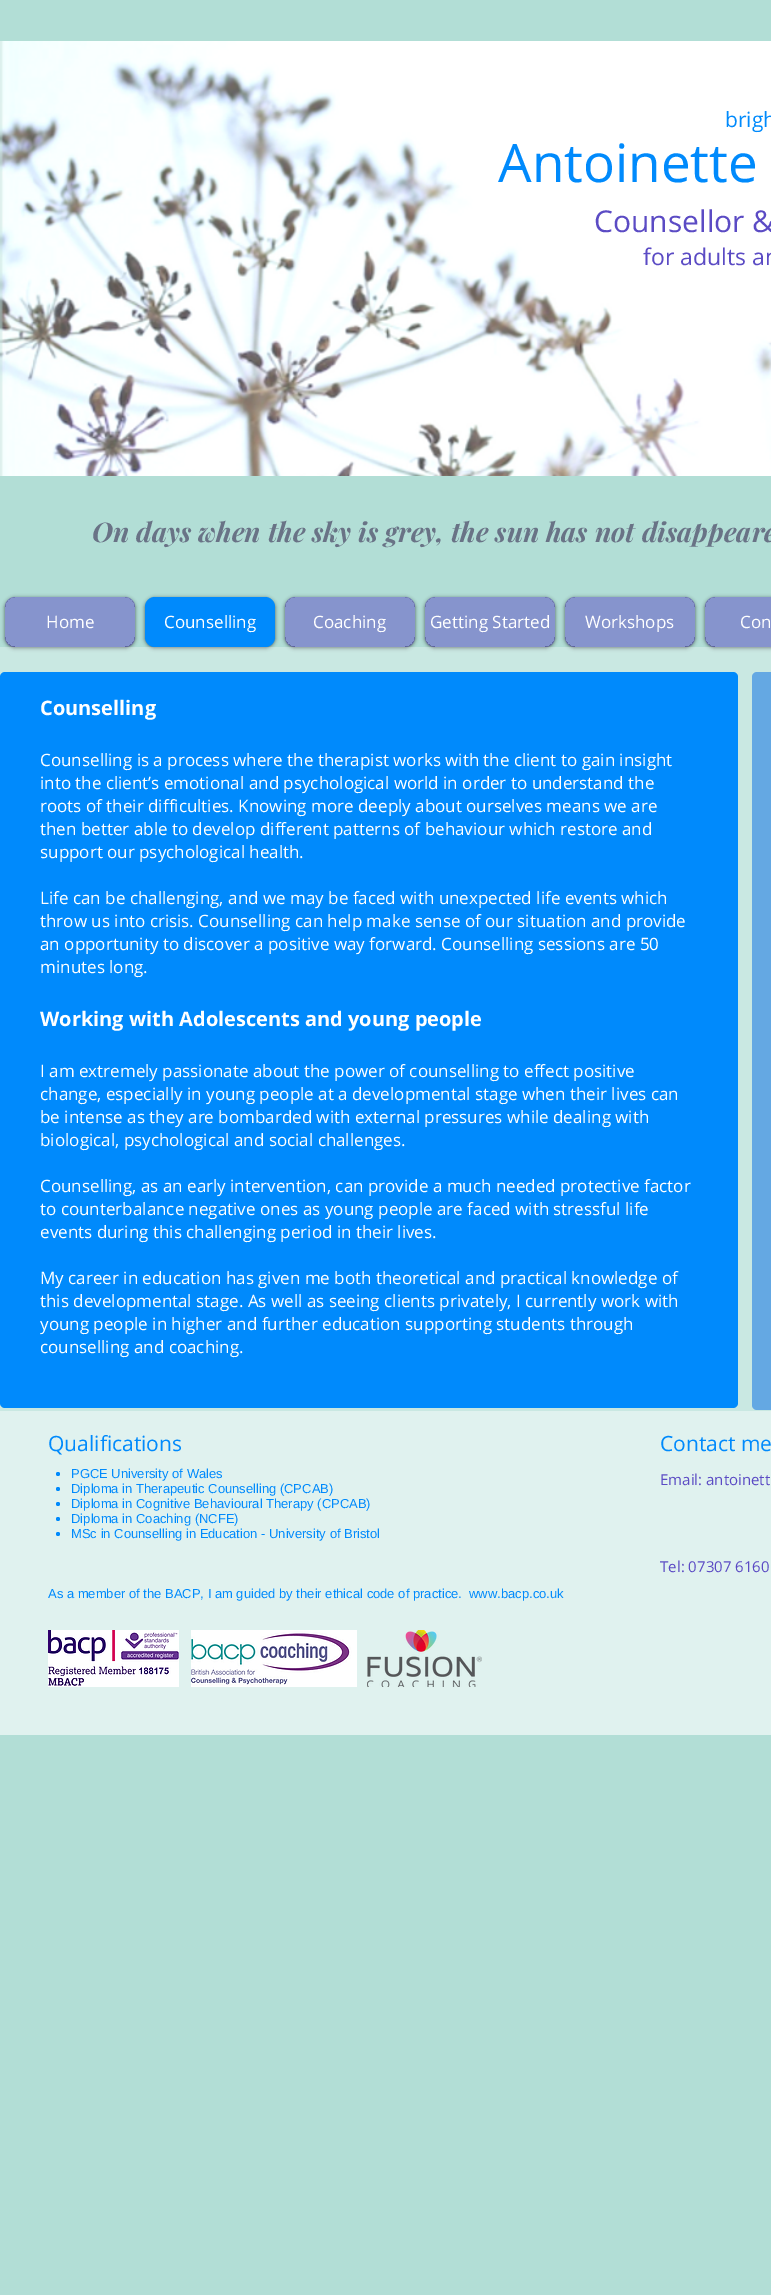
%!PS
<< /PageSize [771 2295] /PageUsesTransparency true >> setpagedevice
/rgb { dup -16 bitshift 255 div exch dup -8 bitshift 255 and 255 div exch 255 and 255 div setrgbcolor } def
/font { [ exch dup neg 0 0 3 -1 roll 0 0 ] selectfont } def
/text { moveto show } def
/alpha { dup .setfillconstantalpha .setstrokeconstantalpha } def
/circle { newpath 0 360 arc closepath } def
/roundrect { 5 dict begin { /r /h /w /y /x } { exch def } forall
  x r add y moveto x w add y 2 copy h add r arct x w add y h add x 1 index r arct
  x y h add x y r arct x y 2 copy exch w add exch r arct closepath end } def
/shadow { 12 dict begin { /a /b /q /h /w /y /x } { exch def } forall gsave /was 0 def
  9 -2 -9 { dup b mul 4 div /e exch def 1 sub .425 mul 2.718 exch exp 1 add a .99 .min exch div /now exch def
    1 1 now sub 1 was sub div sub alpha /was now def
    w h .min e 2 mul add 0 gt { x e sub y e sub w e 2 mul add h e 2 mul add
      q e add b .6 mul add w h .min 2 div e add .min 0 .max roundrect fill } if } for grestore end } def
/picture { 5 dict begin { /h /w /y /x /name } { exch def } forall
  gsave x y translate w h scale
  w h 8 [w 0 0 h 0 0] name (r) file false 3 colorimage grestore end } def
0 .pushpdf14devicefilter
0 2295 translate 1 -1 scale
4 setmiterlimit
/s1 { /OpenSans-Regular 21 font 16#008AFC rgb } def
/s2 { /OpenSans-Regular 53 font 16#008AFC rgb } def
/s3 { /OpenSans-Regular 30 font 16#5B4BC4 rgb } def
/s4 { /OpenSans-Regular 23 font 16#5B4BC4 rgb } def
/s5 { /PlayfairDisplay-BoldItalic 27 font 16#697386 rgb } def
/s6 { /OpenSans-Regular 17 font 16#FFFFFF rgb } def
/s7 { /OpenSans-Bold 20 font 16#FFFFFF rgb } def
/s8 { /LiberationSans-Regular 13 font 16#008AFC rgb } def
/s9 { /OpenSans-Regular 15 font 16#5B4BC4 rgb } def
16#B2DED6 rgb
0 0 771 2295 rectfill
(pic1.raw) 0 41 771 435 picture
s1
(brigh) 725 127 text
s2
(Antoinette) 498 182 text
s3
(Counsellor &) 594 232 text
s4
(for adults an) 643 265 text
s5
(On days when the sky is grey, the sun has not disappeare) 92 542 text
gsave
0 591 moveto 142 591 lineto 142 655 lineto 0 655 lineto closepath 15 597 moveto 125 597 lineto 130.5 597 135 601.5 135 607 curveto 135 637 lineto 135 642.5 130.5 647 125 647 curveto 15 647 lineto 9.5 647 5 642.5 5 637 curveto 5 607 lineto 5 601.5 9.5 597 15 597 curveto closepath eoclip newpath
16#000000 rgb
5 598 130 50 10 2 0.6 shadow
grestore
0.5 alpha
16#5B4BC4 rgb
5 597 130 50 10 roundrect fill
1 alpha
s6
(Home) 46 628 text
16#000000 rgb
145 598 130 50 10 2 0.6 shadow
16#008AFC rgb
145 597 130 50 10 roundrect fill
s6
(Counselling) 164 628 text
gsave
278 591 moveto 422 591 lineto 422 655 lineto 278 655 lineto closepath 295 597 moveto 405 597 lineto 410.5 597 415 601.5 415 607 curveto 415 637 lineto 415 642.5 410.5 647 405 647 curveto 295 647 lineto 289.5 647 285 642.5 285 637 curveto 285 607 lineto 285 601.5 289.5 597 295 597 curveto closepath eoclip newpath
16#000000 rgb
285 598 130 50 10 2 0.6 shadow
grestore
0.5 alpha
16#5B4BC4 rgb
285 597 130 50 10 roundrect fill
1 alpha
s6
(Coaching) 313 628 text
gsave
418 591 moveto 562 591 lineto 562 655 lineto 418 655 lineto closepath 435 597 moveto 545 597 lineto 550.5 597 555 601.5 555 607 curveto 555 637 lineto 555 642.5 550.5 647 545 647 curveto 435 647 lineto 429.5 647 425 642.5 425 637 curveto 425 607 lineto 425 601.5 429.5 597 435 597 curveto closepath eoclip newpath
16#000000 rgb
425 598 130 50 10 2 0.6 shadow
grestore
0.5 alpha
16#5B4BC4 rgb
425 597 130 50 10 roundrect fill
1 alpha
s6
(Getting Started) 430 628 text
gsave
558 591 moveto 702 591 lineto 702 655 lineto 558 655 lineto closepath 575 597 moveto 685 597 lineto 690.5 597 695 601.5 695 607 curveto 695 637 lineto 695 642.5 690.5 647 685 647 curveto 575 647 lineto 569.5 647 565 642.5 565 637 curveto 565 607 lineto 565 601.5 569.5 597 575 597 curveto closepath eoclip newpath
16#000000 rgb
565 598 130 50 10 2 0.6 shadow
grestore
0.5 alpha
16#5B4BC4 rgb
565 597 130 50 10 roundrect fill
1 alpha
s6
(Workshops) 585 628 text
gsave
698 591 moveto 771 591 lineto 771 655 lineto 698 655 lineto closepath 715 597 moveto 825 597 lineto 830.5 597 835 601.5 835 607 curveto 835 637 lineto 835 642.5 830.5 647 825 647 curveto 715 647 lineto 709.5 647 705 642.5 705 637 curveto 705 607 lineto 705 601.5 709.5 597 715 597 curveto closepath eoclip newpath
16#000000 rgb
705 598 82 50 10 2 0.6 shadow
grestore
0.5 alpha
16#5B4BC4 rgb
705 597 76 50 10 roundrect fill
1 alpha
s6
(Con) 740 628 text
0.3 alpha
0 647 771 764 rectfill
1 alpha
16#008AFC rgb
0 672 738 736 5 roundrect fill
s7
(Counselling) 40 715 text
s6
(Counselling is a process where the therapist works with the client to gain insight) 40 766 text
(into the client’s emotional and psychological world in order to understand the) 40 789 text
(roots of their difficulties. Knowing more deeply about ourselves means we are) 40 812 text
(then better able to develop different patterns of behaviour which restore and) 40 835 text
(support our psychological health.) 40 858 text
(Life can be challenging, and we may be faced with unexpected life events which) 40 904 text
(throw us into crisis. Counselling can help make sense of our situation and provide) 40 927 text
(an opportunity to discover a positive way forward. Counselling sessions are 50) 40 950 text
(minutes long.) 40 973 text
s7
(Working with Adolescents and young people) 40 1026 text
s6
(I am extremely passionate about the power of counselling to effect positive) 40 1077 text
(change, especially in young people at a developmental stage when their lives can) 40 1100 text
(be intense as they are bombarded with external pressures while dealing with) 40 1123 text
(biological, psychological and social challenges.) 40 1146 text
(Counselling, as an early intervention, can provide a much needed protective factor) 40 1192 text
(to counterbalance negative ones as young people are faced with stressful life) 40 1215 text
(events during this challenging period in their lives.) 40 1238 text
(My career in education has given me both theoretical and practical knowledge of) 40 1284 text
(this developmental stage. As well as seeing clients privately, I currently work with) 40 1307 text
(young people in higher and further education supporting students through) 40 1330 text
(counselling and coaching.) 40 1353 text
16#64A8E3 rgb
752 672 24 738 5 roundrect fill
16#E0F2EF rgb
0 1411 771 324 rectfill
s1
(Qualifications) 48 1451 text
(Contact me) 660 1451 text
58 1474 2 circle fill
s8
(PGCE University of Wales) 71 1478 text
58 1489 2 circle fill
(Diploma in Therapeutic Counselling \(CPCAB\)) 71 1493 text
58 1504 2 circle fill
(Diploma in Cognitive Behavioural Therapy \(CPCAB\)) 71 1508 text
58 1519 2 circle fill
(Diploma in Coaching \(NCFE\)) 71 1523 text
58 1534 2 circle fill
(MSc in Counselling in Education - University of Bristol) 71 1538 text
s9
(Email: antoinett) 660 1485 text
(Tel: 07307 6160) 660 1572 text
s8
(As a member of the BACP, I am guided by their ethical code of practice.) 48 1598 text
(www.bacp.co.uk) 469 1598 text
(pic2.raw) 48 1630 131 57 picture
(pic3.raw) 191 1630 166 57 picture
(pic4.raw) 367 1630 115 57 picture
.poppdf14devicefilter showpage
